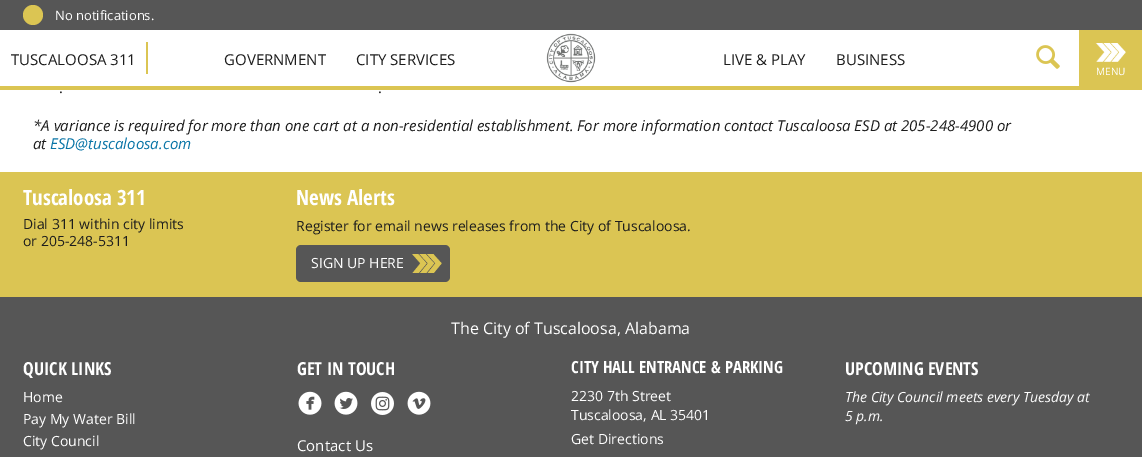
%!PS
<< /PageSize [1142 457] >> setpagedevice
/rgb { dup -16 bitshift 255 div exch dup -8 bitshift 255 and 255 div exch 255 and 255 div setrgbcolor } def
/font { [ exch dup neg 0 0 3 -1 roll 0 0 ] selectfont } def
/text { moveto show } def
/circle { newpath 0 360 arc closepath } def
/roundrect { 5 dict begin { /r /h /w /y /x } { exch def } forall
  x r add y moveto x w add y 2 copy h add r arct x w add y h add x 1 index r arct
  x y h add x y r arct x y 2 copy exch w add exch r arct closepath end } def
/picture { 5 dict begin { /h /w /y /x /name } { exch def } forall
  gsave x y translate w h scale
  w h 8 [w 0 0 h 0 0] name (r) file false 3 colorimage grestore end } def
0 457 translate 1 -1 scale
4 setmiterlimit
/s1 { /OpenSans-Regular 13 font 16#FFFFFF rgb } def
/s2 { /OpenSans-Regular 15 font 16#1D1D1D rgb } def
/s3 { /OpenSans-Regular 10 font 16#FFFFFF rgb } def
/s4 { /OpenSans-Italic 15 font 16#1D1D1D rgb } def
/s5 { /OpenSans-Italic 15 font 16#0975A7 rgb } def
/s6 { /OpenSansCondensed-Bold 21 font 16#FFFFFF rgb } def
/s7 { /OpenSans-Regular 14 font 16#1D1D1D rgb } def
/s8 { /OpenSans-Regular 14 font 16#FFFFFF rgb } def
/s9 { /OpenSans-Regular 16 font 16#FFFFFF rgb } def
/s10 { /OpenSansCondensed-Bold 18 font 16#FFFFFF rgb } def
/s11 { /OpenSans-Regular 15 font 16#FFFFFF rgb } def
/s12 { /OpenSansCondensed-Bold 16.75 font 16#FFFFFF rgb } def
/s13 { /OpenSans-Italic 14 font 16#FFFFFF rgb } def
16#FFFFFF rgb
0 0 1142 457 rectfill
16#565656 rgb
0 0 1142 30 rectfill
16#DBC553 rgb
33 15 10 circle fill
s1
(No notifications.) 55 20 text
16#DBC553 rgb
0 86 1142 4 rectfill
146 42 2 32 rectfill
s2
(TUSCALOOSA 311) 11 65 text
(GOVERNMENT) 224 65 text
(CITY SERVICES) 356 65 text
(pic1.raw) 546 33 50 50 picture
(LIVE & PLAY) 723 65 text
(BUSINESS) 836 65 text
(pic2.raw) 1036 45 24 24 picture
16#DBC553 rgb
1079 30 63 56 rectfill
(pic3.raw) 1095 43 31 19 picture
s3
(MENU) 1096 75 text
s2
(.) 59 93 text
(.) 378 93 text
s4
(*A variance is required for more than one cart at a non-residential establishment. For more information contact Tuscaloosa ESD at 205-248-4900 or) 33 131 text
(at) 33 149 text
s5
(ESD@tuscaloosa.com) 50 149 text
16#DBC553 rgb
0 172 1142 125 rectfill
s6
(Tuscaloosa 311) 23 205 text
s7
(Dial 311 within city limits) 23 229 text
(or 205-248-5311) 23 246 text
s6
(News Alerts) 296 205 text
s7
(Register for email news releases from the City of Tuscaloosa.) 296 231 text
16#565656 rgb
296 245 154 37 5 roundrect fill
s8
(SIGN UP HERE) 311 268 text
(pic4.raw) 412 254 30 19 picture
16#565656 rgb
0 297 1142 160 rectfill
s9
(The City of Tuscaloosa, Alabama) 451 334 text
s10
(QUICK LINKS) 23 375 text
s8
(Home) 23 402 text
(Pay My Water Bill) 23 424 text
(City Council) 23 446 text
s10
(GET IN TOUCH) 297 375 text
(pic5.raw) 298 391 24 24 picture
(pic6.raw) 334 391 24 24 picture
(pic7.raw) 371 392 23 23 picture
(pic8.raw) 407 391 24 24 picture
s11
(Contact Us) 297 451 text
s12
(CITY HALL ENTRANCE & PARKING) 571 373 text
s8
(2230 7th Street) 571 401 text
(Tuscaloosa, AL 35401) 571 420 text
(Get Directions) 571 444 text
s10
(UPCOMING EVENTS) 845 375 text
s13
(The City Council meets every Tuesday at) 845 402 text
(5 p.m.) 845 421 text
showpage
